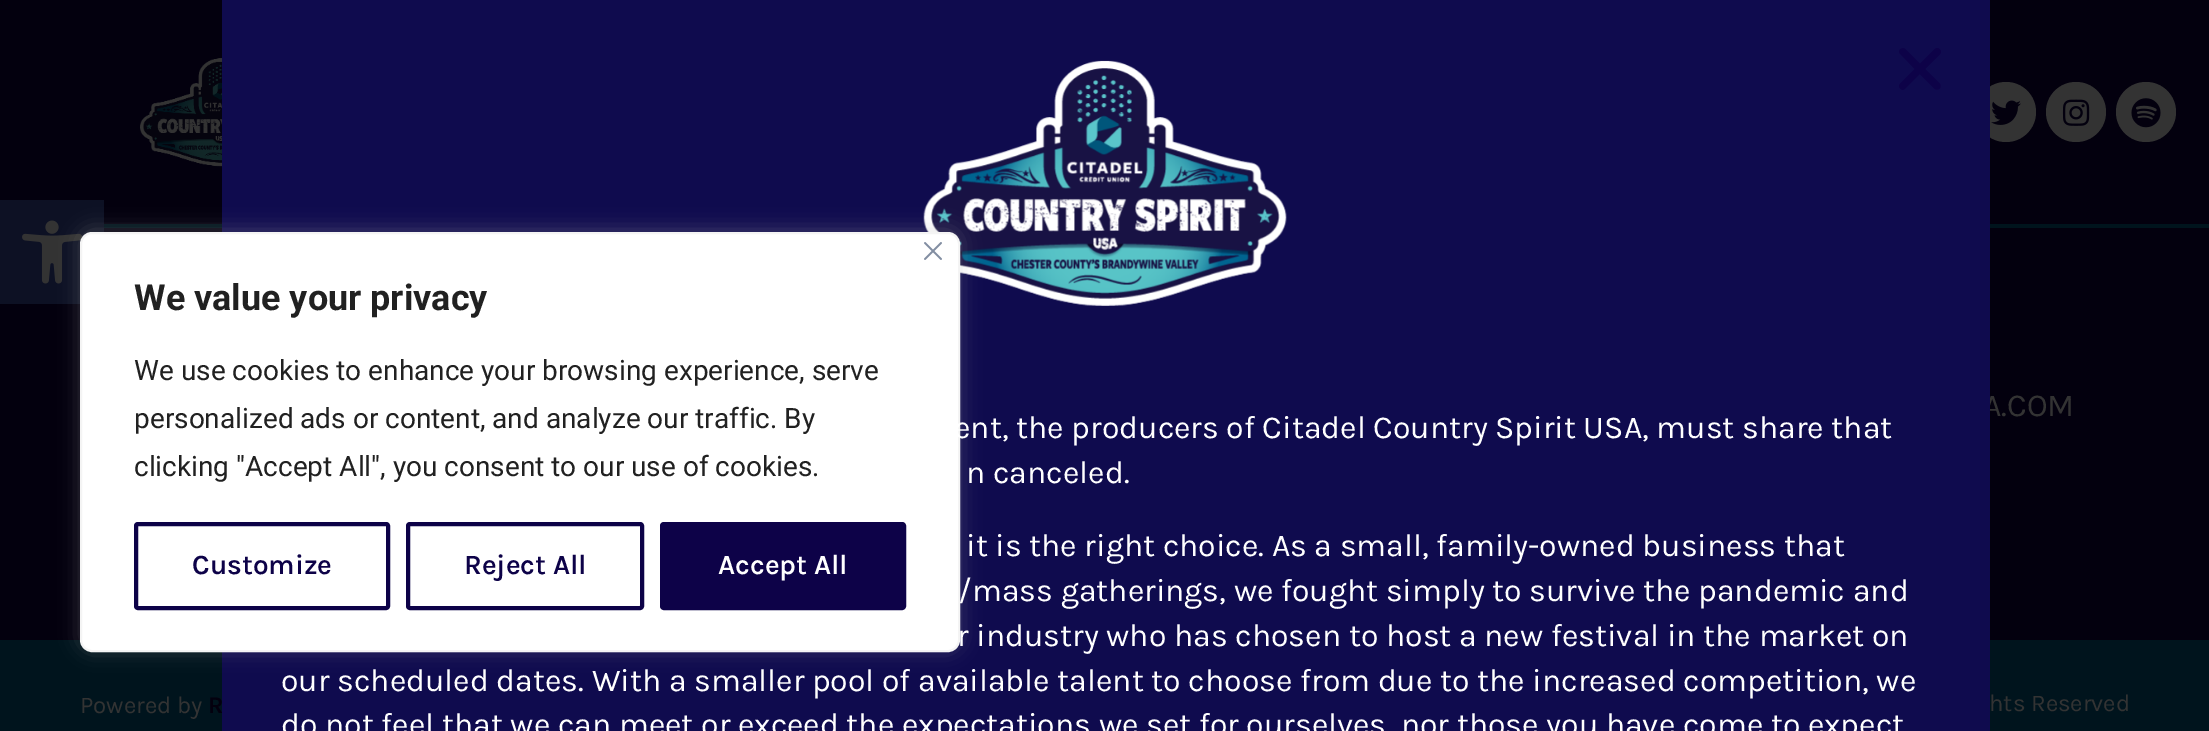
%!PS
<< /PageSize [2209 731] /PageUsesTransparency true >> setpagedevice
/rgb { dup -16 bitshift 255 div exch dup -8 bitshift 255 and 255 div exch 255 and 255 div setrgbcolor } def
/font { [ exch dup neg 0 0 3 -1 roll 0 0 ] selectfont } def
/text { moveto show } def
/alpha { dup .setfillconstantalpha .setstrokeconstantalpha } def
/circle { newpath 0 360 arc closepath } def
/roundrect { 5 dict begin { /r /h /w /y /x } { exch def } forall
  x r add y moveto x w add y 2 copy h add r arct x w add y h add x 1 index r arct
  x y h add x y r arct x y 2 copy exch w add exch r arct closepath end } def
/shadow { 12 dict begin { /a /b /q /h /w /y /x } { exch def } forall gsave /was 0 def
  9 -2 -9 { dup b mul 4 div /e exch def 1 sub .425 mul 2.718 exch exp 1 add a .99 .min exch div /now exch def
    1 1 now sub 1 was sub div sub alpha /was now def
    w h .min e 2 mul add 0 gt { x e sub y e sub w e 2 mul add h e 2 mul add
      q e add b .6 mul add w h .min 2 div e add .min 0 .max roundrect fill } if } for grestore end } def
/picture { 5 dict begin { /h /w /y /x /name } { exch def } forall
  gsave x y translate w h scale
  w h 8 [w 0 0 h 0 0] name (r) file false 3 colorimage grestore end } def
0 .pushpdf14devicefilter
0 731 translate 1 -1 scale
4 setmiterlimit
/s1 { /Karla-Regular 32 font 16#333333 rgb } def
/s2 { /Karla-Bold 24 font 16#03000E rgb } def
/s3 { /Roboto-Bold 36 font 16#212121 rgb } def
/s4 { /Roboto-Regular 28 font 16#212121 rgb } def
/s5 { /Karla-SemiBold 28 font 16#0D0248 rgb } def
/s6 { /Karla-SemiBold 28 font 16#FFFFFF rgb } def
/s7 { /Karla-Regular 24 font 16#333333 rgb } def
/s8 { /Karla-Regular 32 font 16#FFFFFF rgb } def
16#03000E rgb
0 0 2209 731 rectfill
(pic1.raw) 140 58 82 109 picture
16#333333 rgb
2006 112 30 circle fill
(pic2.raw) 1991 100 30 25 picture
2076 112 30 circle fill
(pic3.raw) 2062 99 28 27 picture
2146 112 30 circle fill
(pic4.raw) 2131 98 30 30 picture
16#0D1124 rgb
0 200 104 104 rectfill
(pic5.raw) 22 220 61 64 picture
16#00141D rgb
104 224 2105 4 rectfill
0 640 2209 91 rectfill
s1
(A.COM) 1983 416 text
s2
(R) 208 713 text
16#0F0B4E rgb
222 0 1768 731 rectfill
(pic8.raw) 923 60 364 246 picture
16#ACABAB rgb
80 230 880 420 12 10 0.3 shadow
16#FFFFFF rgb
81 233 878 418 11 roundrect gsave fill grestore
16#F4F4F4 rgb
2 setlinewidth
stroke
(pic6.raw) 924 242 18 18 picture
s3
(We value your privacy) 134 310 text
s4
(We use cookies to enhance your browsing experience, serve) 134 380 text
(personalized ads or content, and analyze our traffic. By) 134 428 text
(clicking "Accept All", you consent to our use of cookies.) 134 476 text
16#0D0248 rgb
4 setlinewidth
136 524 252 84 2 roundrect stroke
s5
(Customize) 192 574 text
408 524 234 84 2 roundrect stroke
(Reject All) 464 574 text
662 524 242 84 2 roundrect gsave fill grestore
stroke
s6
(Accept All) 718 574 text
s7
(Powered by) 80 713 text
(hts Reserved) 1989 711 text
(pic7.raw) 1899 48 42 42 picture
s8
(ent, the producers of Citadel Country Spirit USA, must share that) 954 438 text
(n canceled.) 966 483 text
(it is the right choice. As a small, family-owned business that) 966 556 text
(/mass gatherings, we fought simply to survive the pandemic and) 958 601 text
(r industry who has chosen to host a new festival in the market on) 957 646 text
(our scheduled dates. With a smaller pool of available talent to choose from due to the increased competition, we) 281 691 text
(do not feel that we can meet or exceed the expectations we set for ourselves, nor those you have come to expect) 281 735 text
.poppdf14devicefilter showpage
